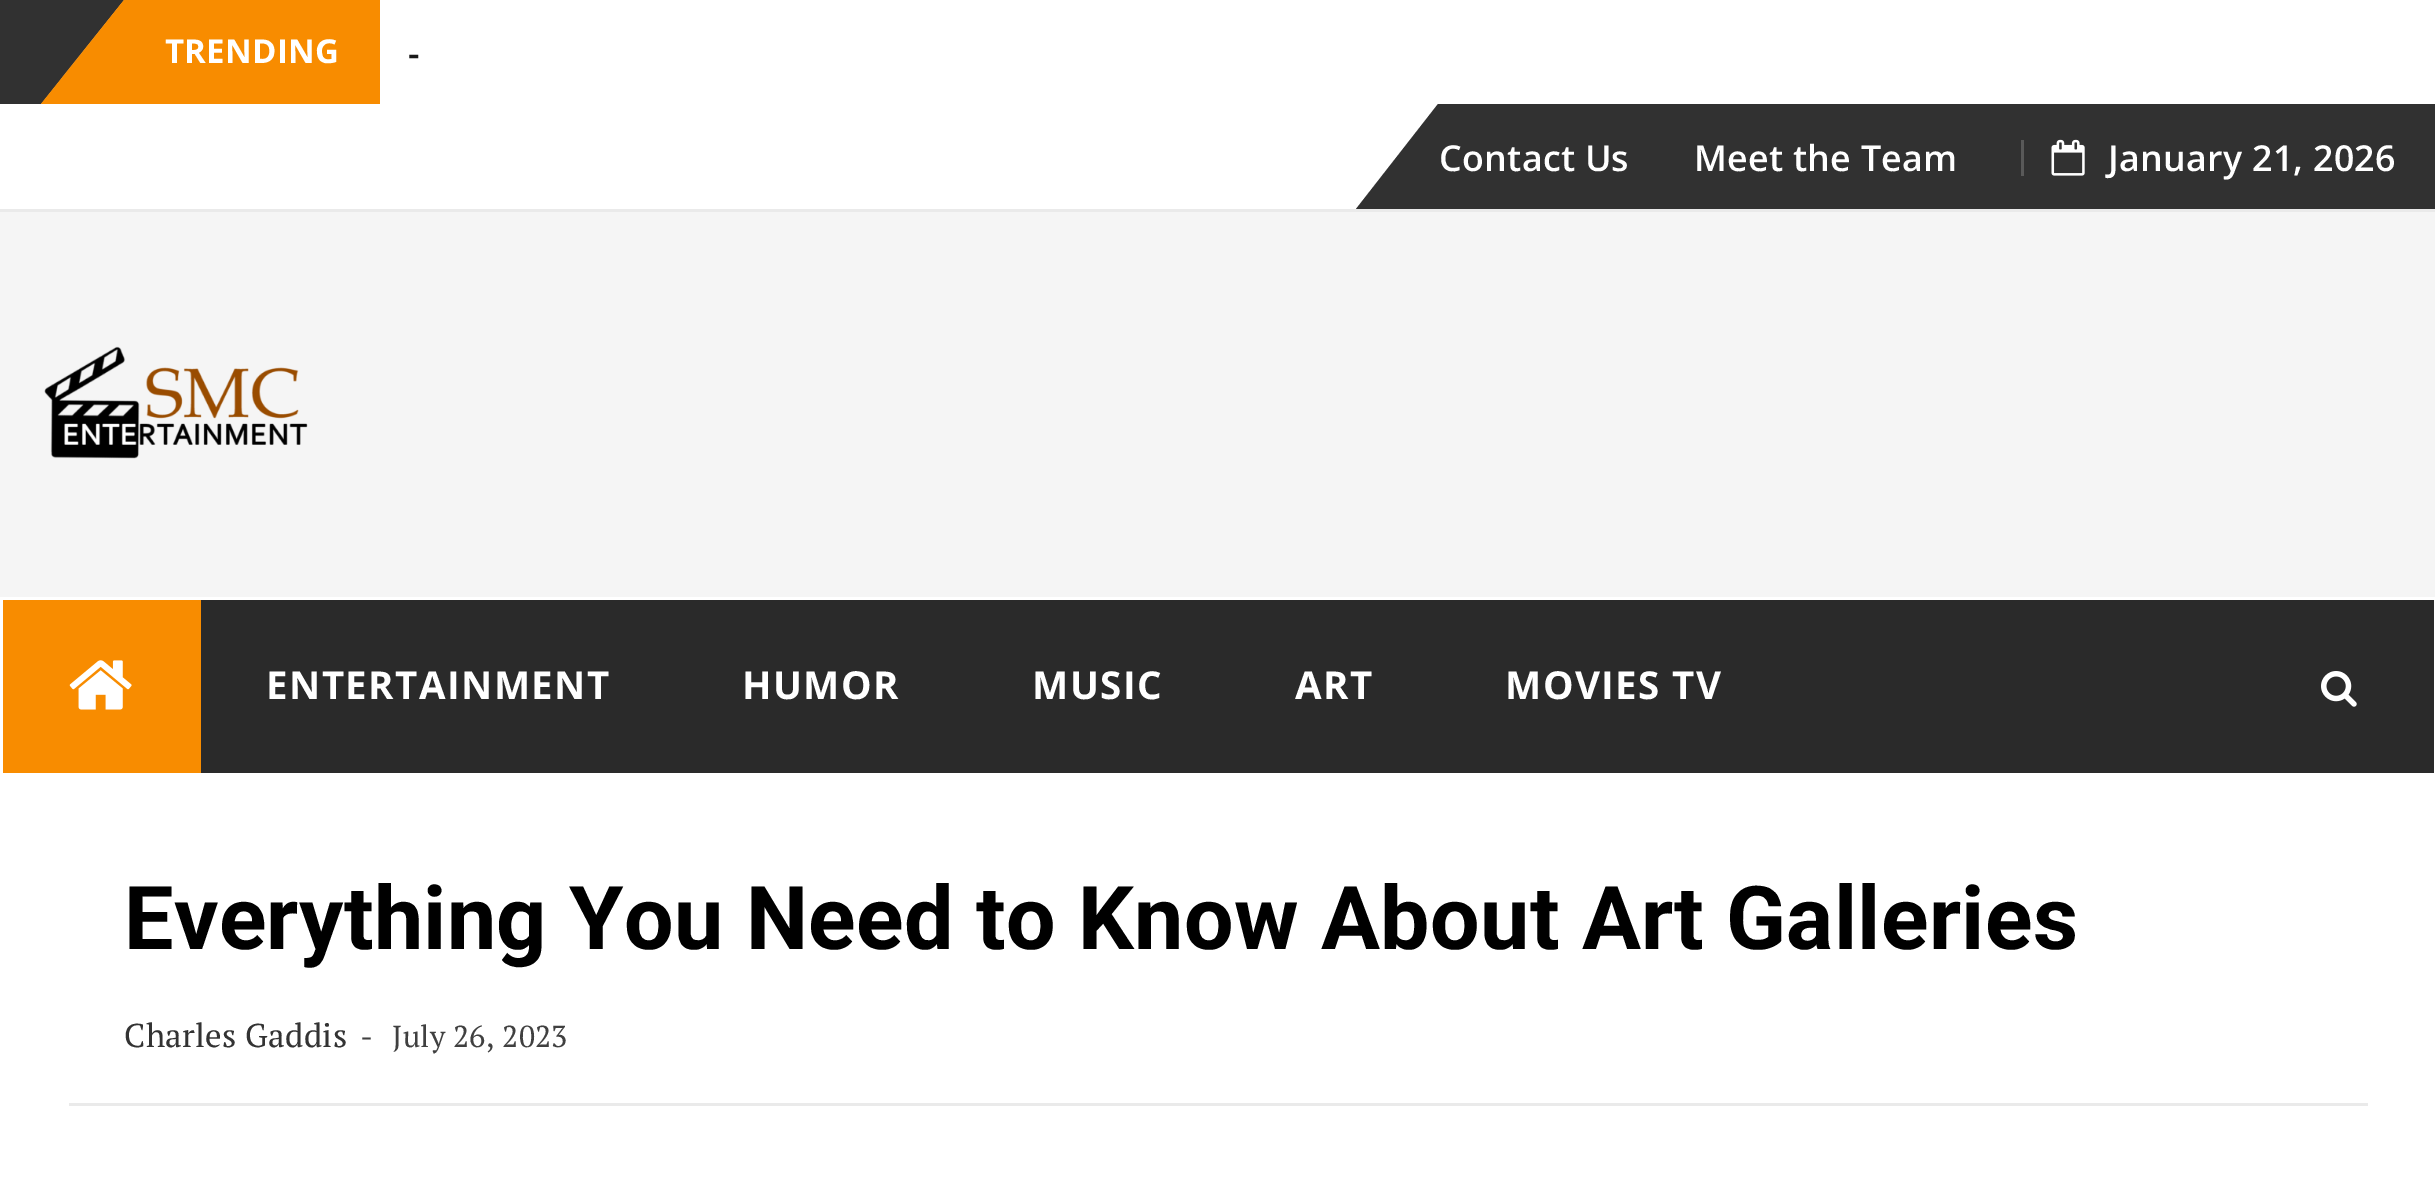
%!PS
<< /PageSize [2435 1193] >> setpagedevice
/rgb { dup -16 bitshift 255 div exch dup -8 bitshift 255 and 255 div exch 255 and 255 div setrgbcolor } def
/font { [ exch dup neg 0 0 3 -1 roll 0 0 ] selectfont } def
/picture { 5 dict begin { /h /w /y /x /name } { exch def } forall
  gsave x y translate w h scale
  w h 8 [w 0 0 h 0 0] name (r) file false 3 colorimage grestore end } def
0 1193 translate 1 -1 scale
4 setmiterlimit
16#FFFFFF rgb
0 0 2435 1193 rectfill
16#EAEAEA rgb
0 209 2435 3 rectfill
16#313131 rgb
0 0 moveto 124 0 lineto 41 104 lineto 0 104 lineto closepath fill
16#F88C00 rgb
380 104 moveto 41 104 lineto 124 0 lineto 380 0 lineto closepath fill
/OpenSans-Bold 33 font
16#FFFFFF rgb
165 63 moveto 0.3 0 (TRENDING) ashow
/OpenSans-SemiBold 35.75 font
16#191919 rgb
408 66 moveto 0.3 0 (-) ashow
16#313131 rgb
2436 209 moveto 1356 209 lineto 1438 104 lineto 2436 104 lineto closepath fill
16#FFFFFF rgb
1439 171 moveto 0.3 0 (Contact Us) ashow
1694 171 moveto 0.3 0 (Meet the Team) ashow
16#595959 rgb
2021 140 3 36 rectfill
(pic1.raw) 2051 139 34 37 picture
16#FFFFFF rgb
2108 171 moveto 0.3 0 (January 21, 2026) ashow
16#F5F5F5 rgb
0 212 2435 385 rectfill
(pic2.raw) 44 346 264 113 picture
16#2A2A2A rgb
201 600 2233 173 rectfill
16#F88C00 rgb
3 600 198 173 rectfill
(pic3.raw) 69 660 63 50 picture
/OpenSans-Bold 38.5 font
16#FFFFFF rgb
266 699 moveto 1.4 0 (ENTERTAINMENT) ashow
742 699 moveto 1.4 0 (HUMOR) ashow
1032 699 moveto 1.4 0 (MUSIC) ashow
1295 699 moveto 1.4 0 (ART) ashow
1505 699 moveto 1.4 0 (MOVIES TV) ashow
(pic4.raw) 2321 671 36 36 picture
/Roboto-Bold 88 font
16#000000 rgb
124 949 moveto 0.3 0 (Everything You Need to Know About Art Galleries) ashow
16#EAEAEA rgb
69 1103 2299 3 rectfill
/PTSerif-Regular 33 font
16#333333 rgb
124 1047 moveto 0.3 0 (Charles Gaddis) ashow
/PTSerif-Regular 30.25 font
16#404040 rgb
360 1047 moveto 0.3 0 (-) ashow
392 1047 moveto 0.3 0 (July 26, 2023) ashow
showpage
